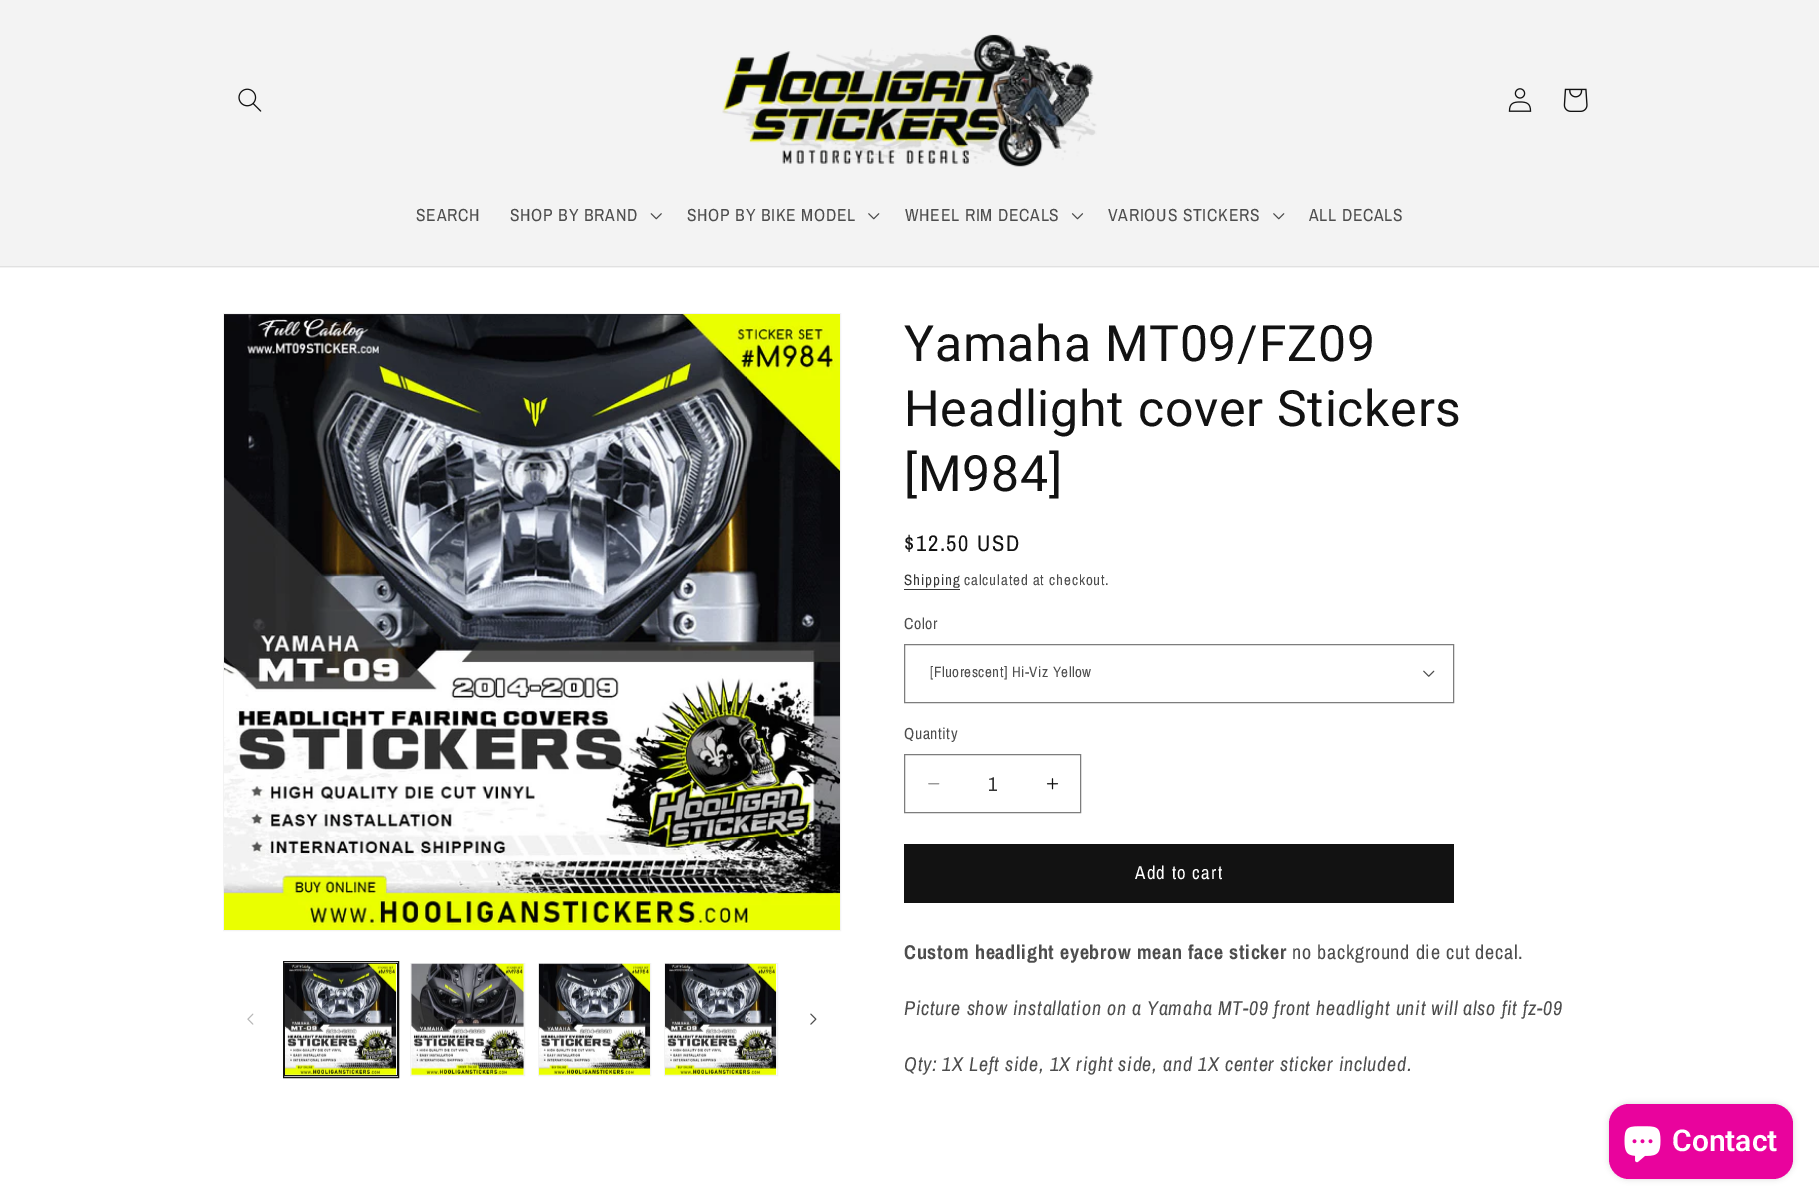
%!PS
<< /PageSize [1819 1204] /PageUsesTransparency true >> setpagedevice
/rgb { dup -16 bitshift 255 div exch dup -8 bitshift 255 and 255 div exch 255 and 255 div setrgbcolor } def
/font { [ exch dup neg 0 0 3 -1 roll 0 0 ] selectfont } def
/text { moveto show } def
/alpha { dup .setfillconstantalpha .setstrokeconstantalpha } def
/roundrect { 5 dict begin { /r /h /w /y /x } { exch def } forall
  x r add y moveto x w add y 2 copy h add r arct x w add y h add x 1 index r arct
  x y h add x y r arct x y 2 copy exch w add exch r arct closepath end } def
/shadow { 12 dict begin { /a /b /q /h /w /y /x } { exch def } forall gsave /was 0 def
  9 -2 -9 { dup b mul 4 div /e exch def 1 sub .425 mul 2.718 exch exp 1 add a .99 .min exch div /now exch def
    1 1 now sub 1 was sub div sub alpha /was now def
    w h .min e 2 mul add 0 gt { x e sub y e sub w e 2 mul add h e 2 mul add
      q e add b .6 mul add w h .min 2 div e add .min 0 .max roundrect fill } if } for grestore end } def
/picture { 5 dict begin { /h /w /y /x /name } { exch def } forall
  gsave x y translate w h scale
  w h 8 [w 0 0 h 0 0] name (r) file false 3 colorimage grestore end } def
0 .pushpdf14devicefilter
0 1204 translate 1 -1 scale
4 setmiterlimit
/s1 { /ArchivoNarrow-Regular 20 font 16#363636 rgb } def
/s2 { /Roboto-SemiBold 30 font 16#FFFFFF rgb } def
16#FFFFFF rgb
0 0 1819 1204 rectfill
16#F3F3F3 rgb
0 0 1819 268 rectfill
16#E1E1E1 rgb
0 266 1819 1 rectfill
(pic1.raw) 238 88 24 24 picture
(pic2.raw) 722 34 375 133 picture
(pic3.raw) 1508 88 24 24 picture
(pic4.raw) 1563 88 25 24 picture
/ArchivoNarrow-Regular 17.5 font
16#4D4D4D rgb
416 221 moveto 0.75 0 (SEARCH) ashow
510 221 moveto 0.75 0 (SHOP BY BRAND) ashow
(pic5.raw) 650 213 12 7 picture
687 221 moveto 0.75 0 (SHOP BY BIKE MODEL) ashow
(pic6.raw) 868 213 12 7 picture
905 221 moveto 0.75 0 (WHEEL RIM DECALS) ashow
(pic7.raw) 1071 213 13 7 picture
1108 221 moveto 0.75 0 (VARIOUS STICKERS) ashow
(pic6.raw) 1273 213 12 7 picture
1309 221 moveto 0.75 0 (ALL DECALS) ashow
16#F3F3F3 rgb
223.5 313.5 617 617 rectstroke
(pic8.raw) 224 314 616 616 picture
(pic9.raw) 247 1013 7 12 picture
16#121212 rgb
283.5 961.5 115 116 rectstroke
284.5 963.5 113 112 rectstroke
(pic10.raw) 285 963 112 113 picture
16#F3F3F3 rgb
410.5 963.5 114 112 rectstroke
(pic11.raw) 411 963 113 113 picture
538.5 963.5 112 112 rectstroke
(pic12.raw) 538 963 112 113 picture
664.5 963.5 113 112 rectstroke
(pic13.raw) 665 963 112 113 picture
(pic14.raw) 810 1013 7 12 picture
/Roboto-Regular 50 font
16#121212 rgb
904 361 moveto 0.75 0 (Yamaha MT09/FZ09) ashow
904 426 moveto 0.75 0 (Headlight cover Stickers) ashow
904 491 moveto 0.75 0 ([M984]) ashow
/ArchivoNarrow-Regular 22.5 font
904 551 moveto 1.6 0 ($12.50 USD) ashow
/ArchivoNarrow-Regular 15 font
16#363636 rgb
904 585 moveto 0.9 0 (Shipping) ashow
904 589 56 1 rectfill
16#4D4D4D rgb
964 585 moveto 0.9 0 (calculated at checkout.) ashow
/ArchivoNarrow-Regular 16 font
904 629 moveto 0.5 0 (Color) ashow
(pic15.raw) 1423 670 12 7 picture
16#7D7D7D rgb
904.5 644.5 549 58 rectstroke
/ArchivoNarrow-Regular 15 font
16#4D4D4D rgb
930 677 moveto 0.5 0 ([Fluorescent] Hi-Viz Yellow) ashow
/ArchivoNarrow-Regular 16 font
904 739 moveto 0.5 0 (Quantity) ashow
(pic16.raw) 928 783 12 2 picture
(pic17.raw) 1046 778 13 12 picture
16#7D7D7D rgb
904.5 754.5 176 58 rectstroke
s1
(1) 988 791 text
16#121212 rgb
904 844 550 59 rectfill
/ArchivoNarrow-Regular 18.75 font
16#FFFFFF rgb
1135 879 moveto 1.25 0 (Add to cart) ashow
/ArchivoNarrow-Bold 20 font
16#4D4D4D rgb
904 959 moveto 0.75 0 (Custom headlight eyebrow mean face sticker) ashow
/ArchivoNarrow-Regular 20 font
1292 959 moveto 0.75 0 (no background die cut decal.) ashow
/ArchivoNarrow-Italic 20 font
904 1015 moveto 0.75 0 (Picture show installation on a Yamaha MT-09 front headlight unit will also fit fz-09) ashow
904 1071 moveto 0.75 0 (Qty: 1X Left side, 1X right side, and 1X center sticker included.) ashow
16#000000 rgb
1609 1104 184 75 20 3 0.15 shadow
16#E9039D rgb
1609 1104 184 75 20 roundrect fill
(pic18.raw) 1624 1126 37 37 picture
s2
(Contact) 1672 1151 text
.poppdf14devicefilter showpage
